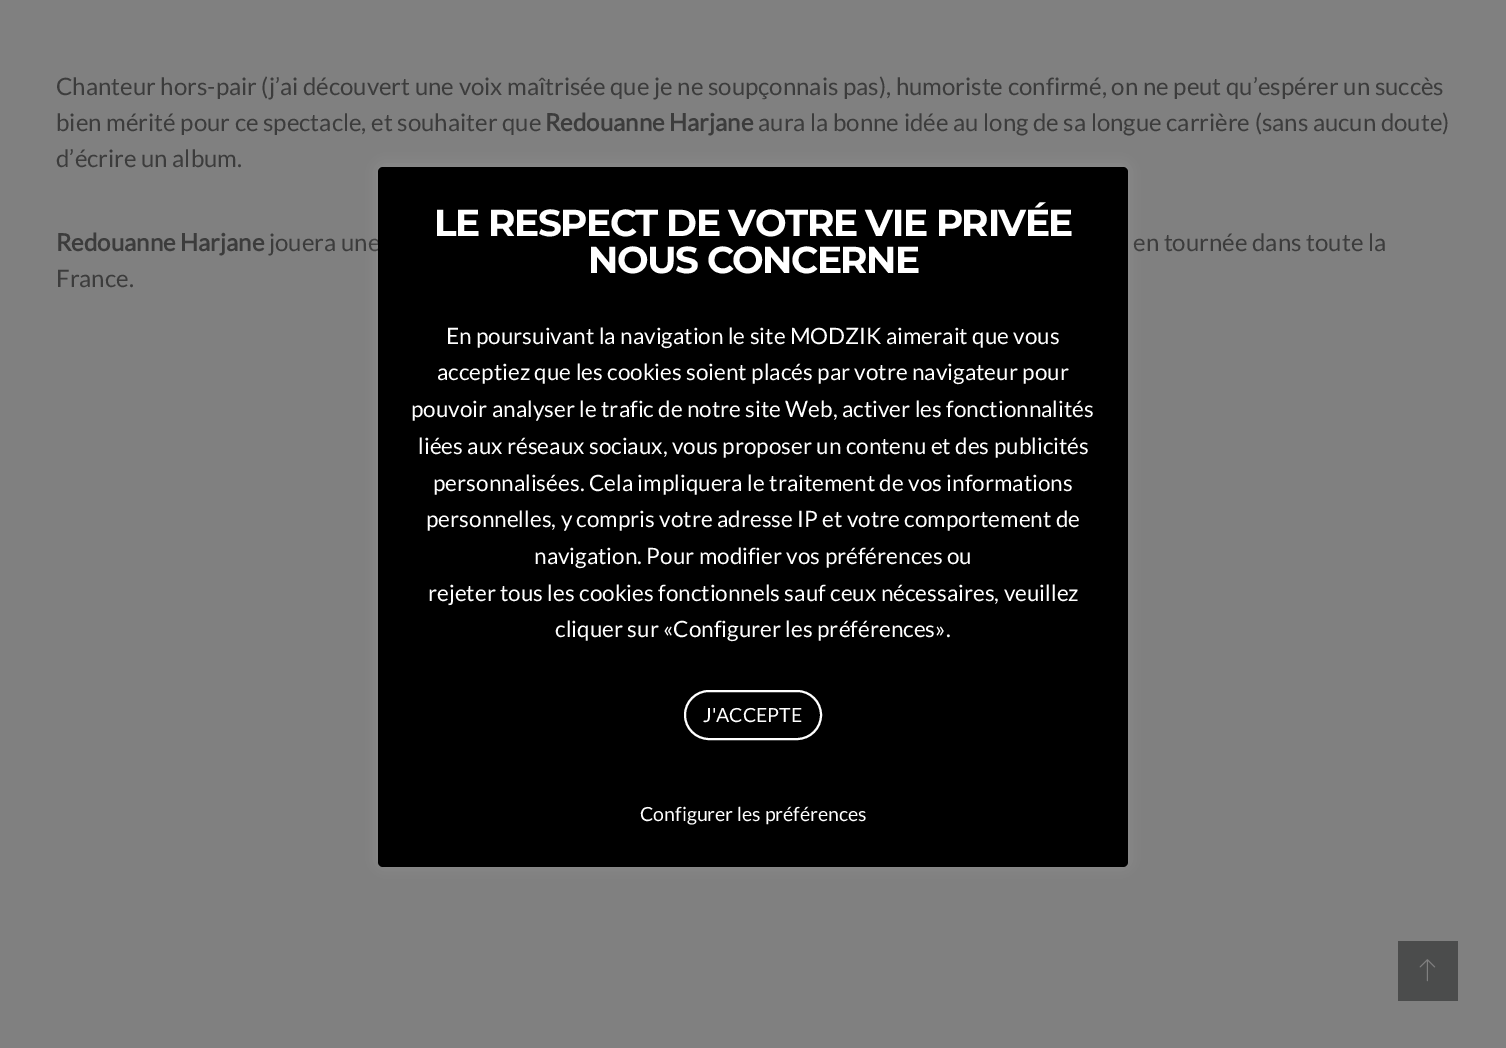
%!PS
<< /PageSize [1506 1048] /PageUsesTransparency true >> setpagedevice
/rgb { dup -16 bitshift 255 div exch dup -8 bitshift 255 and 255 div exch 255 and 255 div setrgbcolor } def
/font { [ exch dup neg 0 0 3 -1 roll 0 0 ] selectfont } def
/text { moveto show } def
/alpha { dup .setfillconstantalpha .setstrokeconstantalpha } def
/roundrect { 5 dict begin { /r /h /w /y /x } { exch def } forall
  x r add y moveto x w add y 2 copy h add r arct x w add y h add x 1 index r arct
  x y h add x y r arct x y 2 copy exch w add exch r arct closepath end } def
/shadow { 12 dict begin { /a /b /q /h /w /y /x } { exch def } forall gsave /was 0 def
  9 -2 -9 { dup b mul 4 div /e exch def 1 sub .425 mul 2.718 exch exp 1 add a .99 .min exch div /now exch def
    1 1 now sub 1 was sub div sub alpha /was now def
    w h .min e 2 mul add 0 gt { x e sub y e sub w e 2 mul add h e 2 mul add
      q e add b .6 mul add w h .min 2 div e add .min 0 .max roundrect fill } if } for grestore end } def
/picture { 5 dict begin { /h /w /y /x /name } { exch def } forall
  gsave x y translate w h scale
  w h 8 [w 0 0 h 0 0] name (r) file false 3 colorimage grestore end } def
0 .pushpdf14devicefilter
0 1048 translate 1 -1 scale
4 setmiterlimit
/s1 { /Lato-Regular 24 font 16#3C3C3C rgb } def
/s2 { /Lato-Bold 24 font 16#3C3C3C rgb } def
/s3 { /Lato-Regular 22.5 font 16#FFFFFF rgb } def
/s4 { /Lato-Regular 19.5 font 16#FFFFFF rgb } def
16#808080 rgb
0 0 1506 1048 rectfill
s1
(Chanteur hors-pair \(j’ai découvert une voix maîtrisée que je ne soupçonnais pas\), humoriste confirmé, on ne peut qu’espérer un succès) 56 95 text
(bien mérité pour ce spectacle, et souhaiter que) 56 131 text
s2
(Redouanne Harjane) 545 131 text
s1
(aura la bonne idée au long de sa longue carrière \(sans aucun doute\)) 758 131 text
(d’écrire un album.) 56 167 text
s2
(Redouanne Harjane) 56 251 text
s1
(jouera une) 269 251 text
(en tournée dans toute la) 1133 251 text
(France.) 56 287 text
16#ACABAB rgb
378 165 750 701 5 7.5 0.3 shadow
16#000000 rgb
378 167 750 700 5 roundrect fill
/Montserrat-Bold 37.5 font
16#FFFFFF rgb
434 236 moveto -1.5 0 (LE RESPECT DE VOTRE VIE PRIVÉE) ashow
588 273 moveto -1.5 0 (NOUS CONCERNE) ashow
s3
(En poursuivant la navigation le site MODZIK aimerait que vous) 446 344 text
(acceptiez que les cookies soient placés par votre navigateur pour) 437 380 text
(pouvoir analyser le trafic de notre site Web, activer les fonctionnalités) 411 417 text
(liées aux réseaux sociaux, vous proposer un contenu et des publicités) 418 454 text
(personnalisées. Cela impliquera le traitement de vos informations) 433 491 text
(personnelles, y compris votre adresse IP et votre comportement de) 426 527 text
(navigation. Pour modifier vos préférences ou) 534 564 text
(rejeter tous les cookies fonctionnels sauf ceux nécessaires, veuillez) 428 601 text
(cliquer sur «Configurer les préférences».) 555 637 text
2 setlinewidth
685 691 136 48 24 roundrect stroke
s4
(J'ACCEPTE) 703 722 text
(Configurer les préférences) 640 821 text
16#4B4C4C rgb
1398 941 60 60 rectfill
(pic1.raw) 1419 959 17 23 picture
.poppdf14devicefilter showpage
